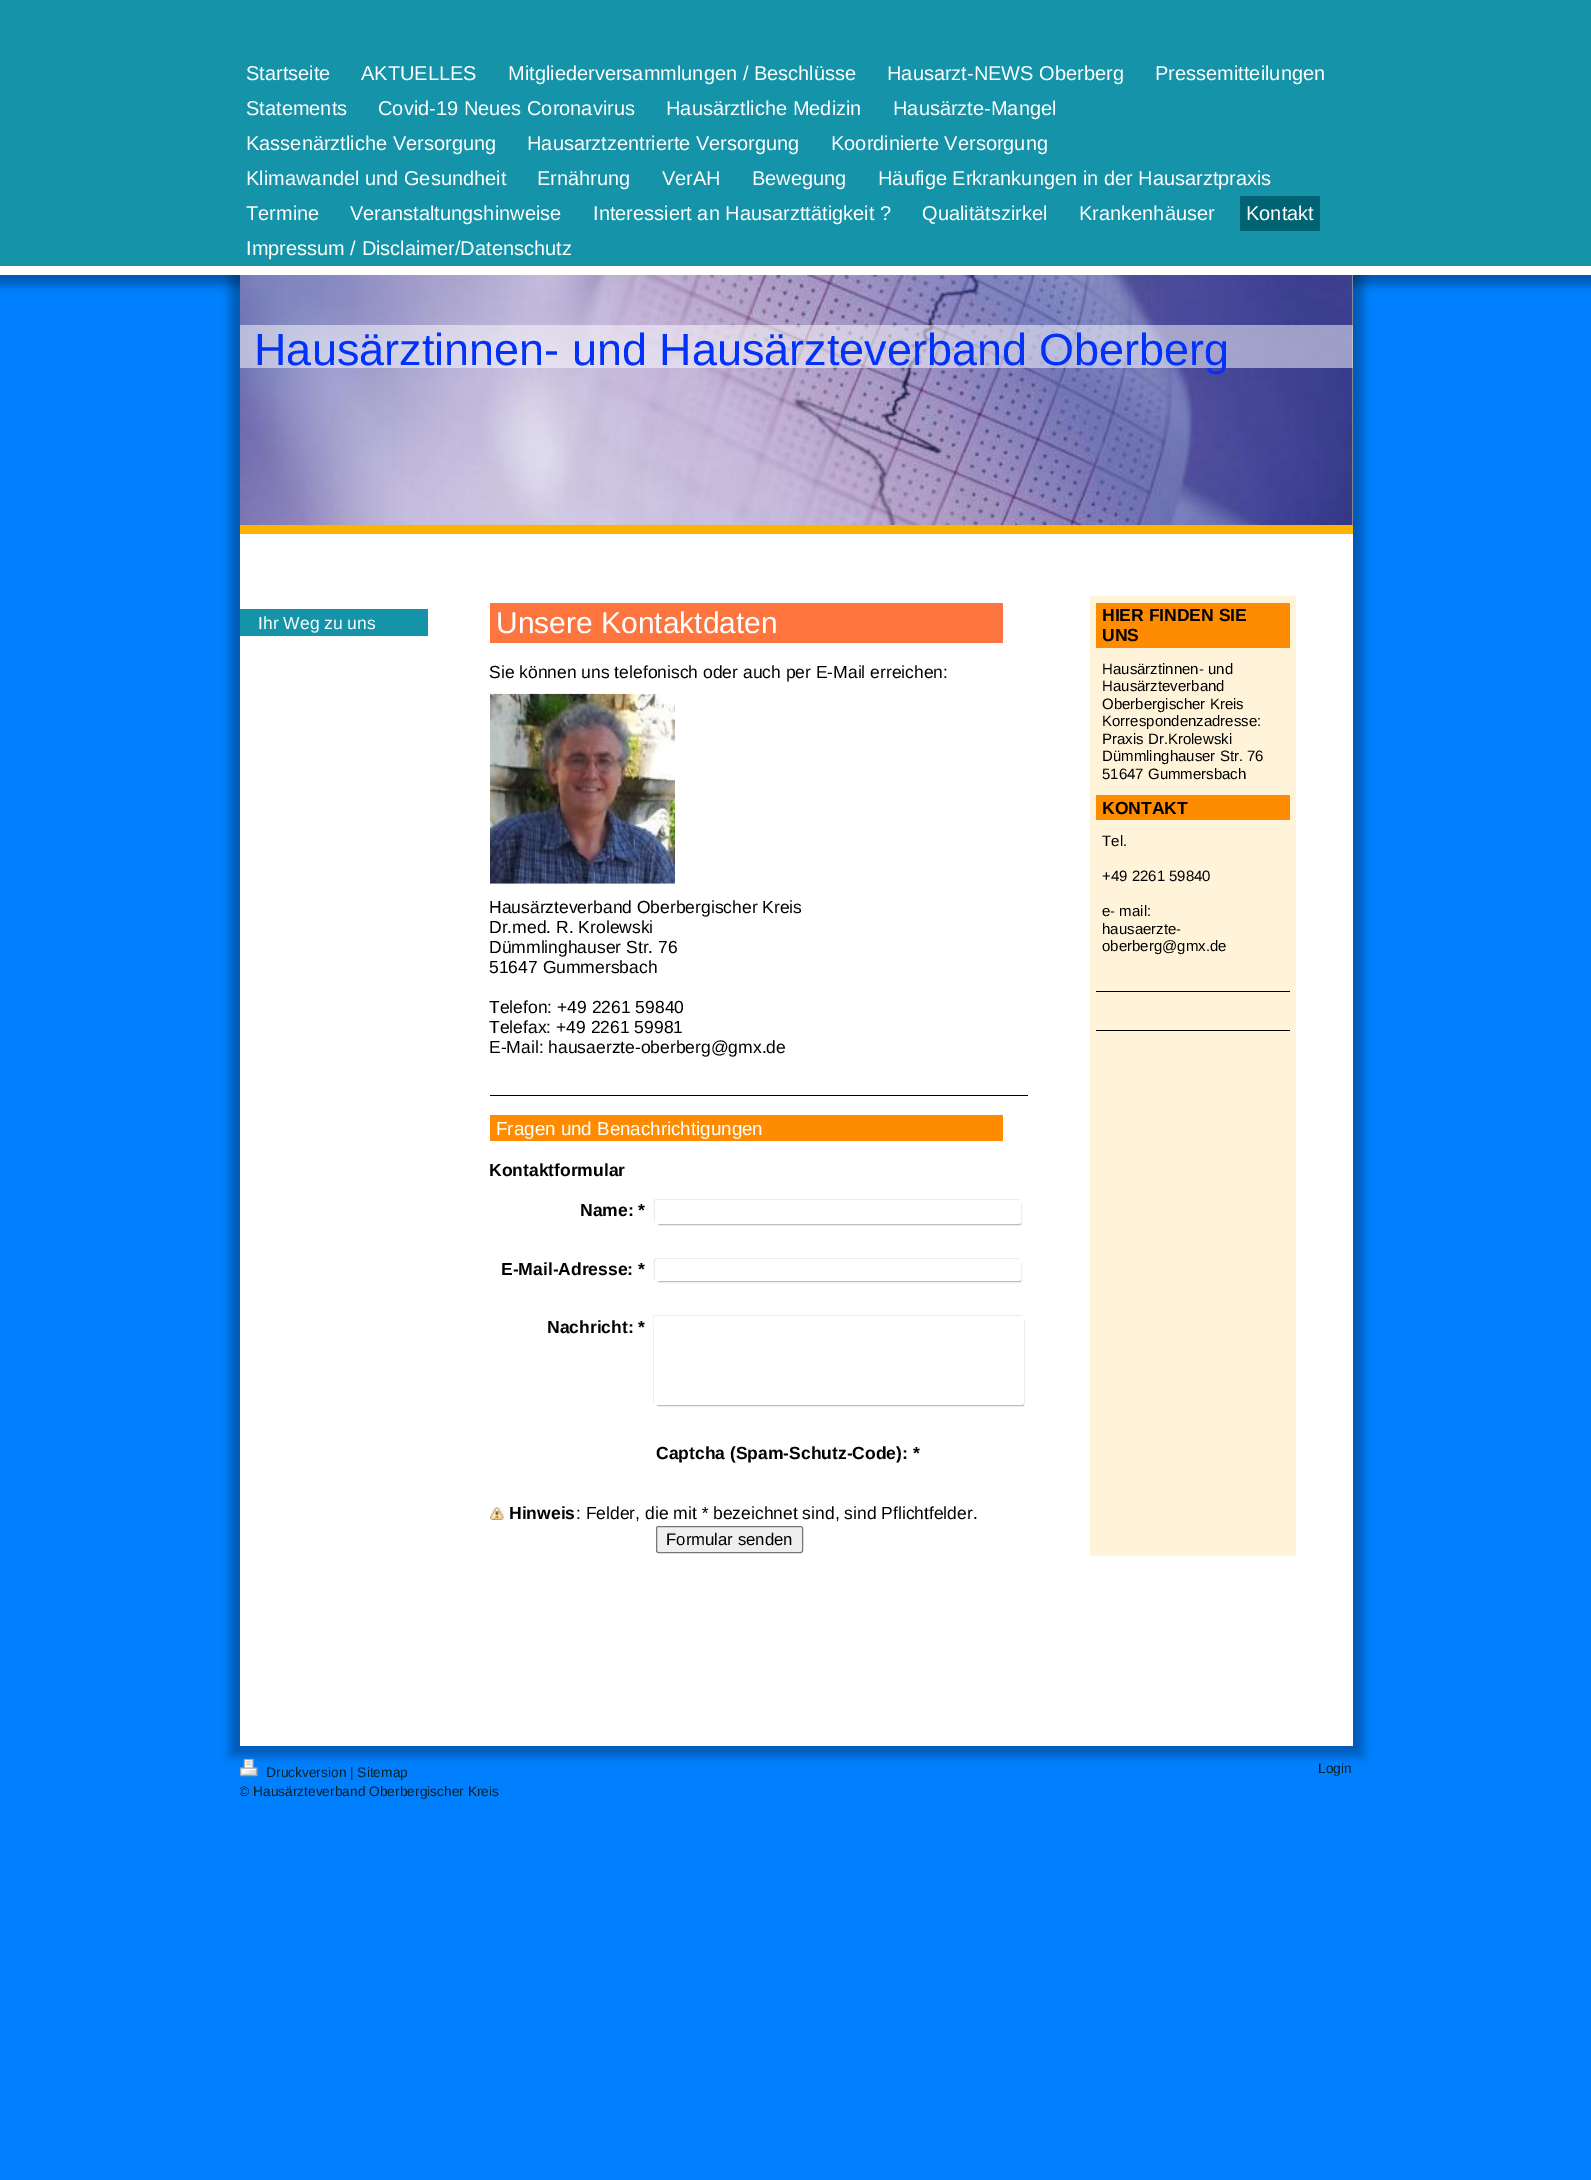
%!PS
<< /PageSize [1591 2180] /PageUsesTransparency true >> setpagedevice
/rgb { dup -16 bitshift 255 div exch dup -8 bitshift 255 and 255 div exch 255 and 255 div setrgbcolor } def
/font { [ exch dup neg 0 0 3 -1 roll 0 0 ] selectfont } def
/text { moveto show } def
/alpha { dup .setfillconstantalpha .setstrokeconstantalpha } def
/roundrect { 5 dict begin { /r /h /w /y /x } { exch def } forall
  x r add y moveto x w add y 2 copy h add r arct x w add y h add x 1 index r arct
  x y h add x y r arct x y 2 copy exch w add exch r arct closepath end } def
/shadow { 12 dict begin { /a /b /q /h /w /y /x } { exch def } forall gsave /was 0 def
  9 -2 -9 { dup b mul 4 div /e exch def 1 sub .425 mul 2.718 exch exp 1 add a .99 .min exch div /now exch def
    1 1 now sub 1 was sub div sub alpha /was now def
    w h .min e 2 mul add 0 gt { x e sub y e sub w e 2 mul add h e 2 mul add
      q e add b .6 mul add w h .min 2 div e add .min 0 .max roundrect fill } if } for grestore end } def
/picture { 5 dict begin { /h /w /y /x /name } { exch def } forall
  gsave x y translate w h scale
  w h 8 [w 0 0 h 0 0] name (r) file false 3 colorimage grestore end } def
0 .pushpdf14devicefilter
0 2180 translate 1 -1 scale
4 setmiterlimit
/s1 { /LiberationSans-Regular 20 font 16#FFFFFF rgb } def
/s2 { /LiberationSans-Regular 45 font 16#0231F9 rgb } def
/s3 { /LiberationSans-Regular 17.5 font 16#FFFFFF rgb } def
/s4 { /LiberationSans-Regular 30 font 16#FFFFFF rgb } def
/s5 { /LiberationSans-Regular 17.5 font 16#000000 rgb } def
/s6 { /LiberationSans-Regular 18.75 font 16#FFFFFF rgb } def
/s7 { /LiberationSans-Bold 17.5 font 16#000000 rgb } def
/s8 { /LiberationSans-Italic 17.5 font 16#000000 rgb } def
/s9 { /LiberationSans-Regular 16.75 font 16#000000 rgb } def
/s10 { /LiberationSans-Regular 15 font 16#000000 rgb } def
/s11 { /LiberationSans-Regular 13.75 font 16#052126 rgb } def
16#0080FF rgb
0 0 1591 2180 rectfill
16#000000 rgb
-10 -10 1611 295 0 5 0.3 shadow
230 265 1133 1491 0 5 0.3 shadow
16#1593A9 rgb
0 0 1591 266 rectfill
16#FFFFFF rgb
0 266 1591 9 rectfill
s1
(Startseite) 246 80 text
(AKTUELLES) 361 80 text
(Mitgliederversammlungen / Beschlüsse) 508 80 text
(Hausarzt-NEWS Oberberg) 887 80 text
(Pressemitteilungen) 1155 80 text
(Statements) 246 115 text
(Covid-19 Neues Coronavirus) 378 115 text
(Hausärztliche Medizin) 666 115 text
(Hausärzte-Mangel) 893 115 text
(Kassenärztliche Versorgung) 246 150 text
(Hausarztzentrierte Versorgung) 527 150 text
(Koordinierte Versorgung) 831 150 text
(Klimawandel und Gesundheit) 246 185 text
(Ernährung) 537 185 text
(VerAH) 662 185 text
(Bewegung) 752 185 text
(Häufige Erkrankungen in der Hausarztpraxis) 878 185 text
(Termine) 246 220 text
(Veranstaltungshinweise) 350 220 text
(Interessiert an Hausarzttätigkeit ?) 593 220 text
(Qualitätszirkel) 922 220 text
(Krankenhäuser) 1079 220 text
16#006373 rgb
1240 196 80 35 rectfill
s1
(Kontakt) 1246 220 text
(Impressum / Disclaimer/Datenschutz) 246 255 text
240 534 1113 1212 rectfill
16#FFB300 rgb
240 525 1113 9 rectfill
16#A0A0A0 rgb
1352 275 1 250 rectfill
(pic1.raw) 240 275 1113 250 picture
0.5 alpha
16#FFFFFF rgb
240 325 1113 43 rectfill
1 alpha
s2
(Hausärztinnen- und Hausärzteverband Oberberg) 254 365 text
16#1593A9 rgb
240 609 188 27 rectfill
s3
(Ihr Weg zu uns) 258 629 text
16#FF753F rgb
490 603 513 40 rectfill
s4
(Unsere Kontaktdaten) 496 633 text
s5
(Sie können uns telefonisch oder auch per E-Mail erreichen:) 489 678 text
(pic2.raw) 490 693 185 191 picture
(Hausärzteverband Oberbergischer Kreis) 489 913 text
(Dr.med. R. Krolewski) 489 933 text
(Dümmlinghauser Str. 76) 489 953 text
(51647 Gummersbach) 489 973 text
(Telefon: +49 2261 59840) 489 1013 text
(Telefax: +49 2261 59981) 489 1033 text
(E-Mail: hausaerzte-oberberg@gmx.de) 489 1053 text
490 1095 538 1 rectfill
16#FF8B00 rgb
490 1115 513 26 rectfill
s6
(Fragen und Benachrichtigungen) 496 1135 text
s7
(Kontaktformular) 489 1176 text
16#EBEBEB rgb
656 1199 moveto 652 1199 654 1209 654 1211 curveto 654 1213 653 1222 656 1223 curveto 654 1221 655 1214 655 1212 curveto 655 1210 653 1200 658 1200 curveto 1020 1200 lineto 1018 1199 lineto closepath fill
16#000000 rgb
659 1205 361 19 0 1 0.8 shadow
16#FFFFFF rgb
655 1200 366 24 2.5 roundrect fill
s7
(Name: *) 580 1216 text
16#EBEBEB rgb
656 1258 moveto 652 1258 654 1267 654 1269 curveto 654 1271 653 1278 655 1280 curveto 655 1270 lineto 655 1268 653 1259 658 1259 curveto 1019 1259 lineto 1018 1258 lineto closepath fill
16#000000 rgb
659 1264 361 17 0 1 0.8 shadow
16#FFFFFF rgb
655 1259 366 22 2.5 roundrect fill
s7
(E-Mail-Adresse: *) 501 1275 text
16#EBEBEB rgb
656 1315 moveto 654 1315 653 1316 653 1318 curveto 653 1402 lineto 654 1403 lineto 654 1333 lineto 654 1327 651 1316 656 1316 curveto 1021 1316 lineto 1023 1317 lineto 1023 1316 1022 1315 1020 1315 curveto closepath fill
16#000000 rgb
658 1321 365 84 0 1 0.8 shadow
16#FFFFFF rgb
654 1316 370 89 2.5 roundrect fill
s7
(Nachricht: *) 547 1333 text
(Captcha \(Spam-Schutz-Code\): *) 656 1459 text
(pic3.raw) 490 1507 14 13 picture
(Hinweis) 509 1519 text
s5
(: Felder, die mit) 576 1519 text
s8
(*) 701 1519 text
s5
(bezeichnet sind, sind Pflichtfelder.) 713 1519 text
16#EFEFEF rgb
656.5 1526.5 146 26 2 roundrect gsave fill grestore
16#767676 rgb
stroke
s9
(Formular senden) 666 1545 text
16#FFF4D9 rgb
1090 596 206 960 rectfill
16#FF8B00 rgb
1096 603 194 45 rectfill
s7
(HIER FINDEN SIE) 1102 621 text
(UNS) 1102 641 text
s10
(Hausärztinnen- und) 1102 674 text
(Hausärzteverband) 1102 691 text
(Oberbergischer Kreis) 1102 709 text
(Korrespondenzadresse:) 1102 726 text
(Praxis Dr.Krolewski) 1102 744 text
(Dümmlinghauser Str. 76) 1102 761 text
(51647 Gummersbach) 1102 779 text
16#FF8B00 rgb
1096 795 194 25 rectfill
s7
(KONTAKT) 1102 814 text
s10
(Tel.) 1102 846 text
(+49 2261 59840) 1102 881 text
(e- mail:) 1102 916 text
(hausaerzte-) 1102 934 text
(oberberg@gmx.de) 1102 951 text
1096 991 194 1 rectfill
1096 1030 194 1 rectfill
(pic4.raw) 240 1758 18 19 picture
s11
(Druckversion | Sitemap) 266 1777 text
gsave
240 1759 1113 42 rectclip
(© Hausärzteverband Oberbergischer Kreis) 239 1796 text
grestore
(Login) 1318 1773 text
.poppdf14devicefilter showpage
